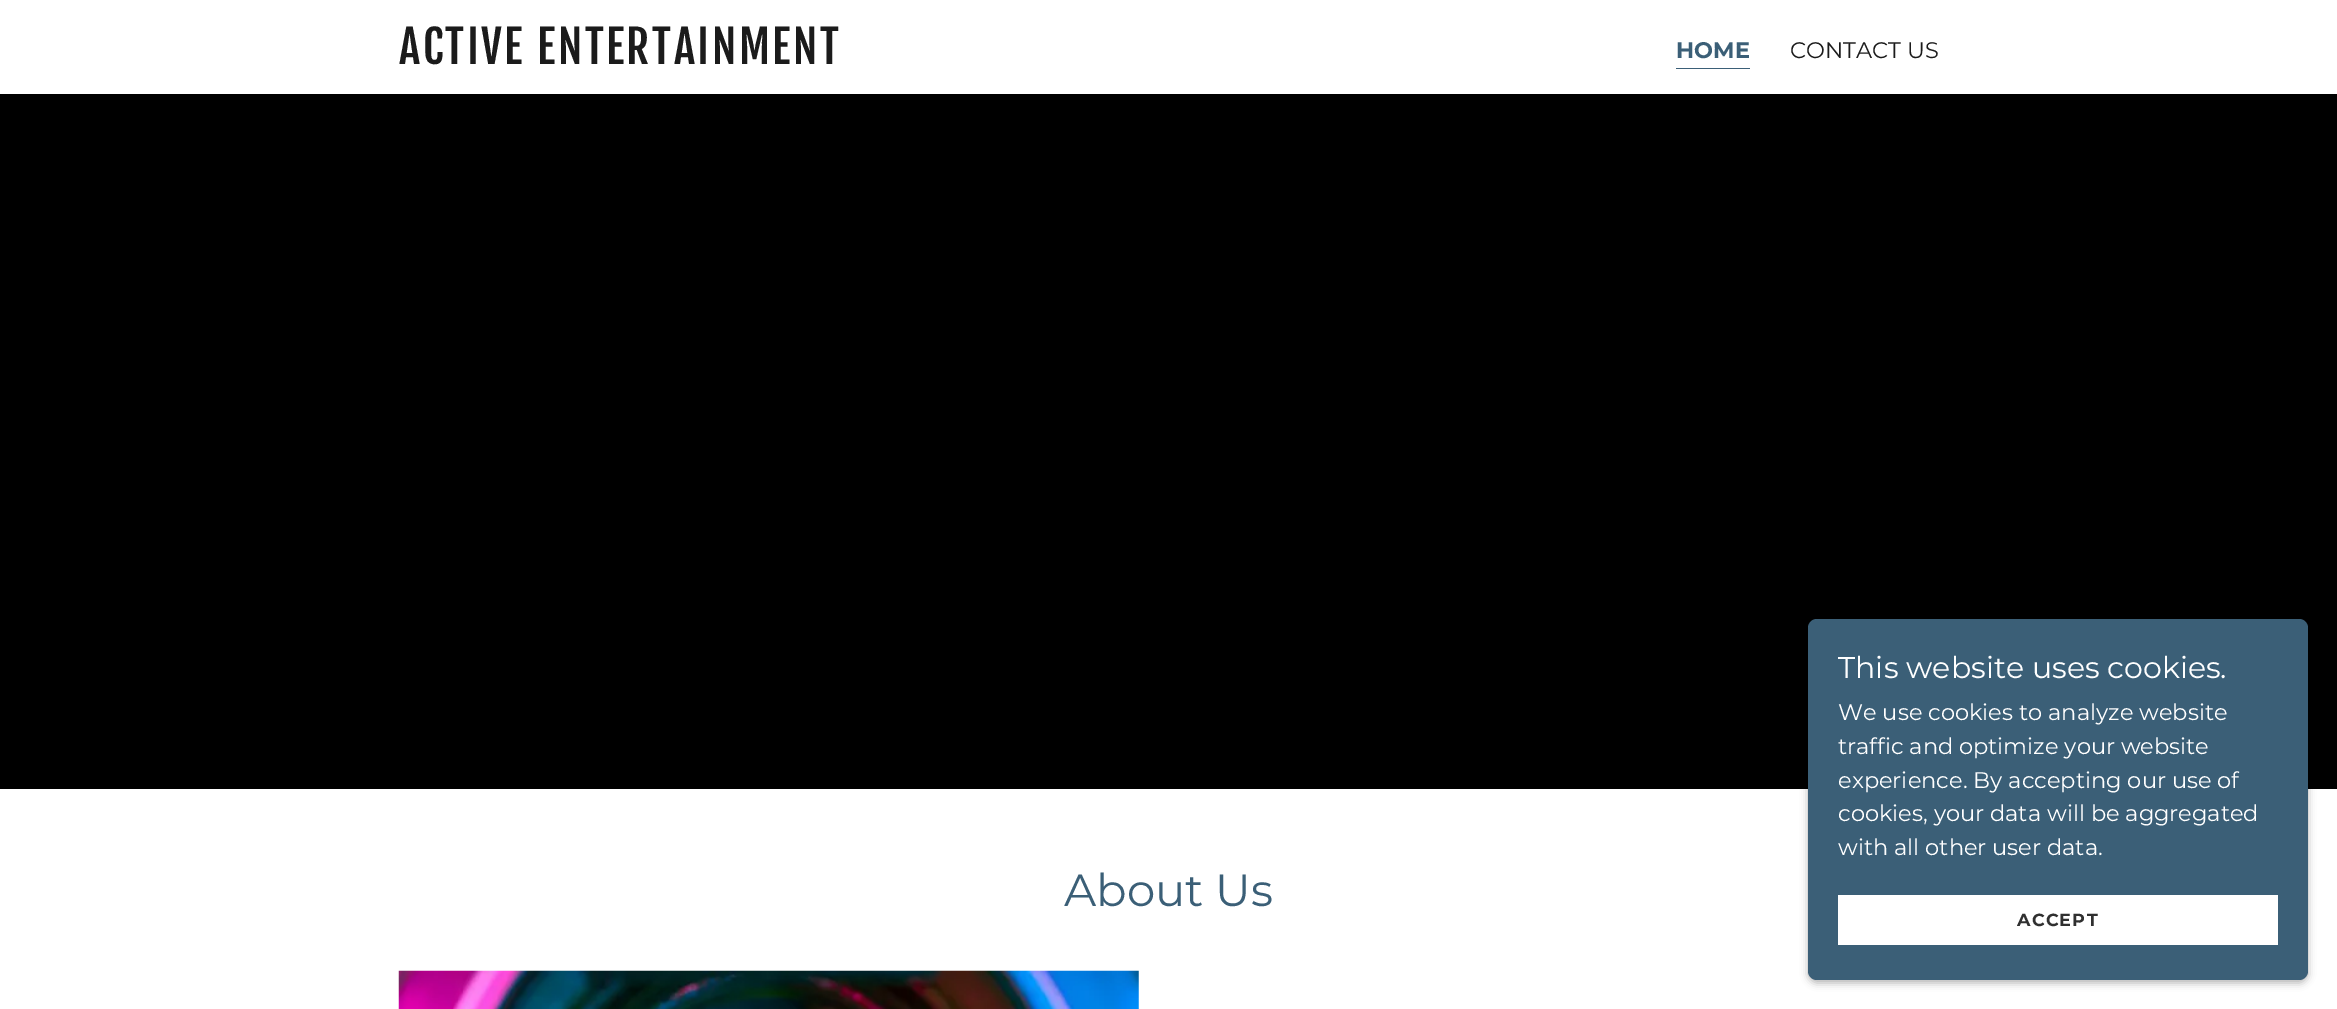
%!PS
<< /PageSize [2337 1009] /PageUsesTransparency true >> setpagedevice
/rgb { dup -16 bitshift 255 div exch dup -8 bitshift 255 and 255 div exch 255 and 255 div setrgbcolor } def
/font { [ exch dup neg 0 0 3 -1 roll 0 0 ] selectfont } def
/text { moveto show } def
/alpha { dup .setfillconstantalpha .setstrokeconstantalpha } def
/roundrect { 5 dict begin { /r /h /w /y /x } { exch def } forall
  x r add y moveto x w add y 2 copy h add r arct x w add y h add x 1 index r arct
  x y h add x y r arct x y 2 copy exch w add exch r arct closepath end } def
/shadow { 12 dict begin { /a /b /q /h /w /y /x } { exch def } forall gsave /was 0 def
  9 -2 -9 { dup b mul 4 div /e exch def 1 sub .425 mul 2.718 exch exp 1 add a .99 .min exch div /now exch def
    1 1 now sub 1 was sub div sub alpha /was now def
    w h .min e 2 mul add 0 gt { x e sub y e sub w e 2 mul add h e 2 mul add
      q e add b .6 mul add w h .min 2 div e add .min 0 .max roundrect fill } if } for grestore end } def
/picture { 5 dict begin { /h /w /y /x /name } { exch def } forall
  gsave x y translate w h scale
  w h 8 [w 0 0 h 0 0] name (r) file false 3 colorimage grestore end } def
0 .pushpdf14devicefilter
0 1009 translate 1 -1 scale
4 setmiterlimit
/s1 { /Montserrat-Bold 22.5 font 16#3B5F77 rgb } def
/s2 { /Montserrat-Regular 22.5 font 16#1B1B1B rgb } def
/s3 { /Montserrat-Regular 45 font 16#3B5F77 rgb } def
/s4 { /Montserrat-Regular 30 font 16#FFFFFF rgb } def
/s5 { /Montserrat-Regular 22.5 font 16#FFFFFF rgb } def
16#FFFFFF rgb
0 0 2337 1009 rectfill
/FjallaOne-Regular 45 font
16#1B1B1B rgb
399 64 moveto 2.5 0 (ACTIVE ENTERTAINMENT) ashow
16#3B5F77 rgb
1676 68 74 1 rectfill
s1
(HOME) 1676 58 text
s2
(CONTACT US) 1790 58 text
16#000000 rgb
0 94 2337 695 rectfill
s3
(About Us) 1064 906 text
(pic1.raw) 398 970 741 39 picture
16#000000 rgb
1808 621 500 362 9 4 0.3 shadow
16#3B5F77 rgb
1808 619 500 361 9 roundrect fill
s4
(This website uses cookies.) 1838 678 text
s5
(We use cookies to analyze website) 1838 720 text
(traffic and optimize your website) 1838 754 text
(experience. By accepting our use of) 1838 788 text
(cookies, your data will be aggregated) 1838 821 text
(with all other user data.) 1838 855 text
1838 895 440 50 rectfill
/Montserrat-Bold 17.5 font
16#303030 rgb
2017 926 moveto 1.25 0 (ACCEPT) ashow
.poppdf14devicefilter showpage
